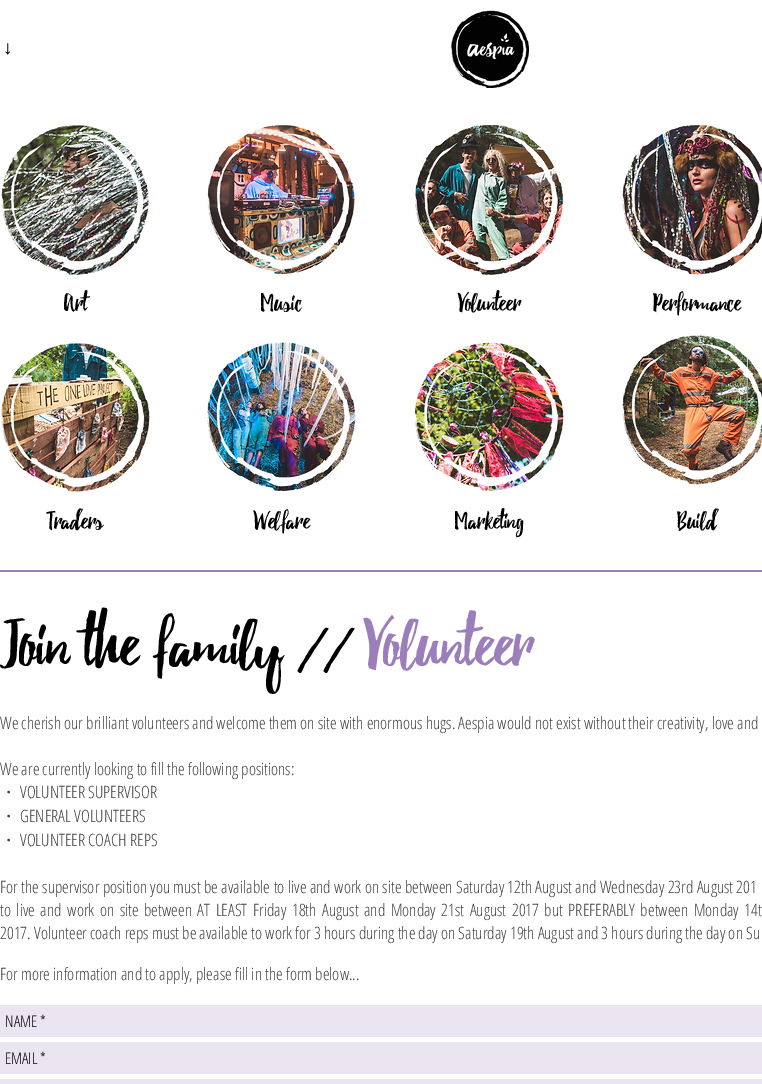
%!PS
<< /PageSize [762 1084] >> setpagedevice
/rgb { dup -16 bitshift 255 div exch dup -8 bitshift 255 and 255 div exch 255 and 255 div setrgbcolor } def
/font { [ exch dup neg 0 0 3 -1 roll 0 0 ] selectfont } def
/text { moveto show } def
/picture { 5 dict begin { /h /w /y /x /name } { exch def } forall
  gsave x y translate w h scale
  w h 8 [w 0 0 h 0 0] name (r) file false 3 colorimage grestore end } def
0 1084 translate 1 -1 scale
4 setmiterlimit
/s1 { /LiberationSerif-Regular 19 font 16#000000 rgb } def
/s2 { /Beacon-Regular 26 font 16#000000 rgb } def
/s3 { /Beacon-Regular 70 font 16#000000 rgb } def
/s4 { /Beacon-Regular 70 font 16#9C7FBA rgb } def
/s5 { /OpenSans-Light 17 font 16#414141 rgb } def
/s6 { /WenQuanYiZenHei-Medium 17 font 16#414141 rgb } def
/s7 { /OpenSans-Light 16 font 16#000000 rgb } def
16#FFFFFF rgb
0 0 762 1084 rectfill
s1
(↓) 3 54 text
(pic1.raw) 451 10 78 78 picture
(pic2.raw) 1 125 148 150 picture
(pic3.raw) 207 125 148 150 picture
(pic4.raw) 415 125 149 150 picture
(pic5.raw) 622 125 140 150 picture
s2
(Art) 64 310 text
(Music) 261 310 text
(Volunteer) 459 310 text
(Performance) 653 310 text
(pic6.raw) 1 343 149 149 picture
(pic7.raw) 207 342 149 150 picture
(pic8.raw) 414 342 150 150 picture
(pic9.raw) 622 335 140 150 picture
(Traders) 48 528 text
(Welfare) 254 528 text
(Marketing) 455 528 text
(Build) 677 528 text
16#9C7FBA rgb
0 570 762 2 rectfill
s3
(Join the family //) 0 664 text
s4
(Volunteer) 367 664 text
s5
(We cherish our brilliant volunteers and welcome them on site with enormous hugs. Aespia would not exist without their creativity, love and) 0 729 text
(We are currently looking to fill the following positions:) 0 775 text
s6
(・) 0 798 text
s5
(VOLUNTEER SUPERVISOR) 20 798 text
s6
(・) 0 822 text
s5
(GENERAL VOLUNTEERS) 20 822 text
s6
(・) 0 846 text
s5
(VOLUNTEER COACH REPS) 20 846 text
0 893 moveto 0.25 0 32 (For the supervisor position you must be available to live and work on site between Saturday 12th August and Wednesday 23rd August 201) widthshow
0 916 moveto 2.4 0 32 (to live and work on site between AT LEAST Friday 18th August and Monday 21st August 2017 but PREFERABLY between Monday 14t) widthshow
(2017. Volunteer coach reps must be available to work for 3 hours during the day on Saturday 19th August and 3 hours during the day on Su) 0 939 text
(For more information and to apply, please fill in the form below...) 0 980 text
16#EBE5F1 rgb
0 1005 762 32 rectfill
s7
(NAME *) 5 1027 text
16#EBE5F1 rgb
0 1042 762 32 rectfill
s7
(EMAIL *) 5 1064 text
16#EBE5F1 rgb
0 1079 762 5 rectfill
showpage
